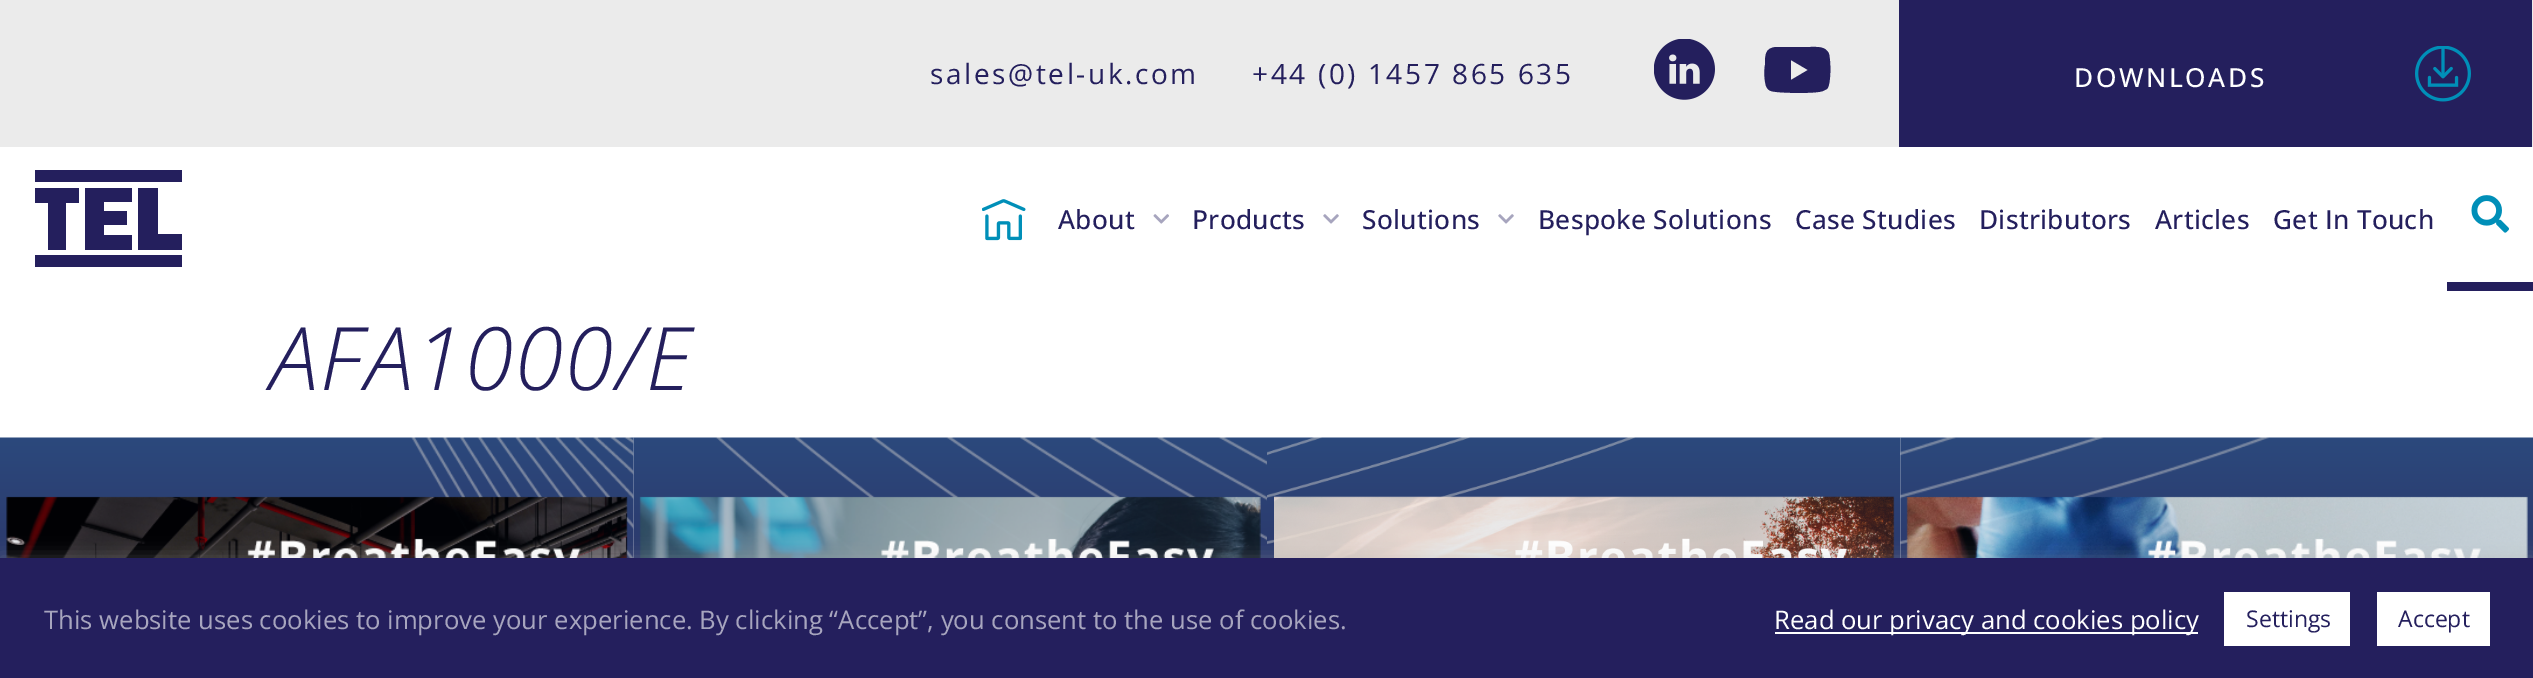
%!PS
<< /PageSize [2533 678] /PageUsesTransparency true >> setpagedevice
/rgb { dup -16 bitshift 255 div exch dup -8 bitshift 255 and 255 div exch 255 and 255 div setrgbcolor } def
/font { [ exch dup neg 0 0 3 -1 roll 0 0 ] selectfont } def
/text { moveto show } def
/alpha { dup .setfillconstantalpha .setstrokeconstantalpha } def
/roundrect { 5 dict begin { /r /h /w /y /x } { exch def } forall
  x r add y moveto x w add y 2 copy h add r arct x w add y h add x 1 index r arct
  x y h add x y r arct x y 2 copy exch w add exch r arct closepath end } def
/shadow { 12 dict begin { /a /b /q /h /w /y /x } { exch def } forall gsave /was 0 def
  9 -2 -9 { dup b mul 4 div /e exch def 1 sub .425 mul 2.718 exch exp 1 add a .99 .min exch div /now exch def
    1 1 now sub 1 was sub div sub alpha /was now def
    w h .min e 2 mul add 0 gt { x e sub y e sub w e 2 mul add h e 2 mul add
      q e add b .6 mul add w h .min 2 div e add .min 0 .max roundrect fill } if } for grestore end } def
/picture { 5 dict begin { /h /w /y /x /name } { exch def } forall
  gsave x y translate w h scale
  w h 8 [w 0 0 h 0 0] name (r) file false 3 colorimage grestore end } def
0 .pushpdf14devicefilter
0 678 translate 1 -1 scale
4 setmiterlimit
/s1 { /OpenSans-Regular 25.67 font 16#A7A5BE rgb } def
/s2 { /OpenSans-Regular 25.67 font 16#FFFFFF rgb } def
/s3 { /OpenSans-Regular 23 font 16#241F5D rgb } def
16#FFFFFF rgb
0 0 2533 678 rectfill
16#EBEBEB rgb
0 0 2533 147 rectfill
/OpenSans-Regular 28 font
16#241F5D rgb
930 84 moveto 2.6 0 (sales@tel-uk.com) ashow
1252 84 moveto 2.6 0 (+44 \(0\) 1457 865 635) ashow
(pic1.raw) 1654 39 61 61 picture
1829 54 moveto 1831 62 1831 85 1827 89 curveto 1823 91 lineto 1815 94 1776 93 1771 91 curveto 1768 90 1767 88 1766 86 curveto 1764 79 1764 71 1765 65 curveto 1765 55 1765 48 1776 47 curveto 1791 47 lineto 1810 47 lineto 1817 47 1826 46 1829 54 curveto closepath 1791 80 moveto 1808 70 lineto 1791 60 lineto closepath fill
1899 0 633 147 rectfill
/OpenSans-Medium 26.25 font
16#FFFFFF rgb
2074 87 moveto 2.6 0 (DOWNLOADS) ashow
(pic2.raw) 2415 46 56 56 picture
16#241F5D rgb
66 203 moveto 66 250 lineto 48 250 lineto 48 203 lineto 35 203 lineto 35 188 lineto 79 188 lineto 79 203 lineto closepath fill
132 235 moveto 132 250 lineto 85 250 lineto 85 188 lineto 132 188 lineto 132 202 lineto 104 202 lineto 104 211 lineto 127 211 lineto 127 225 lineto 104 225 lineto 104 235 lineto closepath fill
182 234 moveto 182 250 lineto 138 250 lineto 138 188 lineto 158 188 lineto 158 234 lineto closepath fill
35 255 147 12 rectfill
35 170 147 12 rectfill
(pic3.raw) 982 199 44 42 picture
1058 229 moveto 0.3 0 (About) ashow
(pic4.raw) 1153 214 16 10 picture
1192 229 moveto 0.3 0 (Products) ashow
(pic5.raw) 1323 214 16 10 picture
1362 229 moveto 0.3 0 (Solutions) ashow
(pic5.raw) 1498 214 16 10 picture
1538 229 moveto 0.3 0 (Bespoke Solutions) ashow
1795 229 moveto 0.3 0 (Case Studies) ashow
1979 229 moveto 0.3 0 (Distributors) ashow
2155 229 moveto 0.3 0 (Articles) ashow
2273 229 moveto 0.3 0 (Get In Touch) ashow
2447 282 86 9 rectfill
(pic6.raw) 2471 195 38 38 picture
/OpenSans-LightItalic 87.5 font
270 390 moveto 2 0 (AFA1000/E) ashow
(pic7.raw) 0 437 634 121 picture
(pic8.raw) 633 437 634 121 picture
(pic9.raw) 1267 437 634 121 picture
(pic10.raw) 1900 437 633 121 picture
16#ACABAB rgb
0 557 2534 120 0 9 0.3 shadow
16#241F5D rgb
0 558 2533 120 rectfill
s1
(This website uses cookies to improve your experience. By clicking “Accept”, you consent to the use of cookies.) 44 629 text
16#FFFFFF rgb
1775 632 423 2 rectfill
(Read our privacy and cookies policy) 1774 629 text
2224 592 126 54 rectfill
s3
(Settings) 2246 627 text
16#FFFFFF rgb
2377 592 113 54 rectfill
s3
(Accept) 2398 627 text
.poppdf14devicefilter showpage
